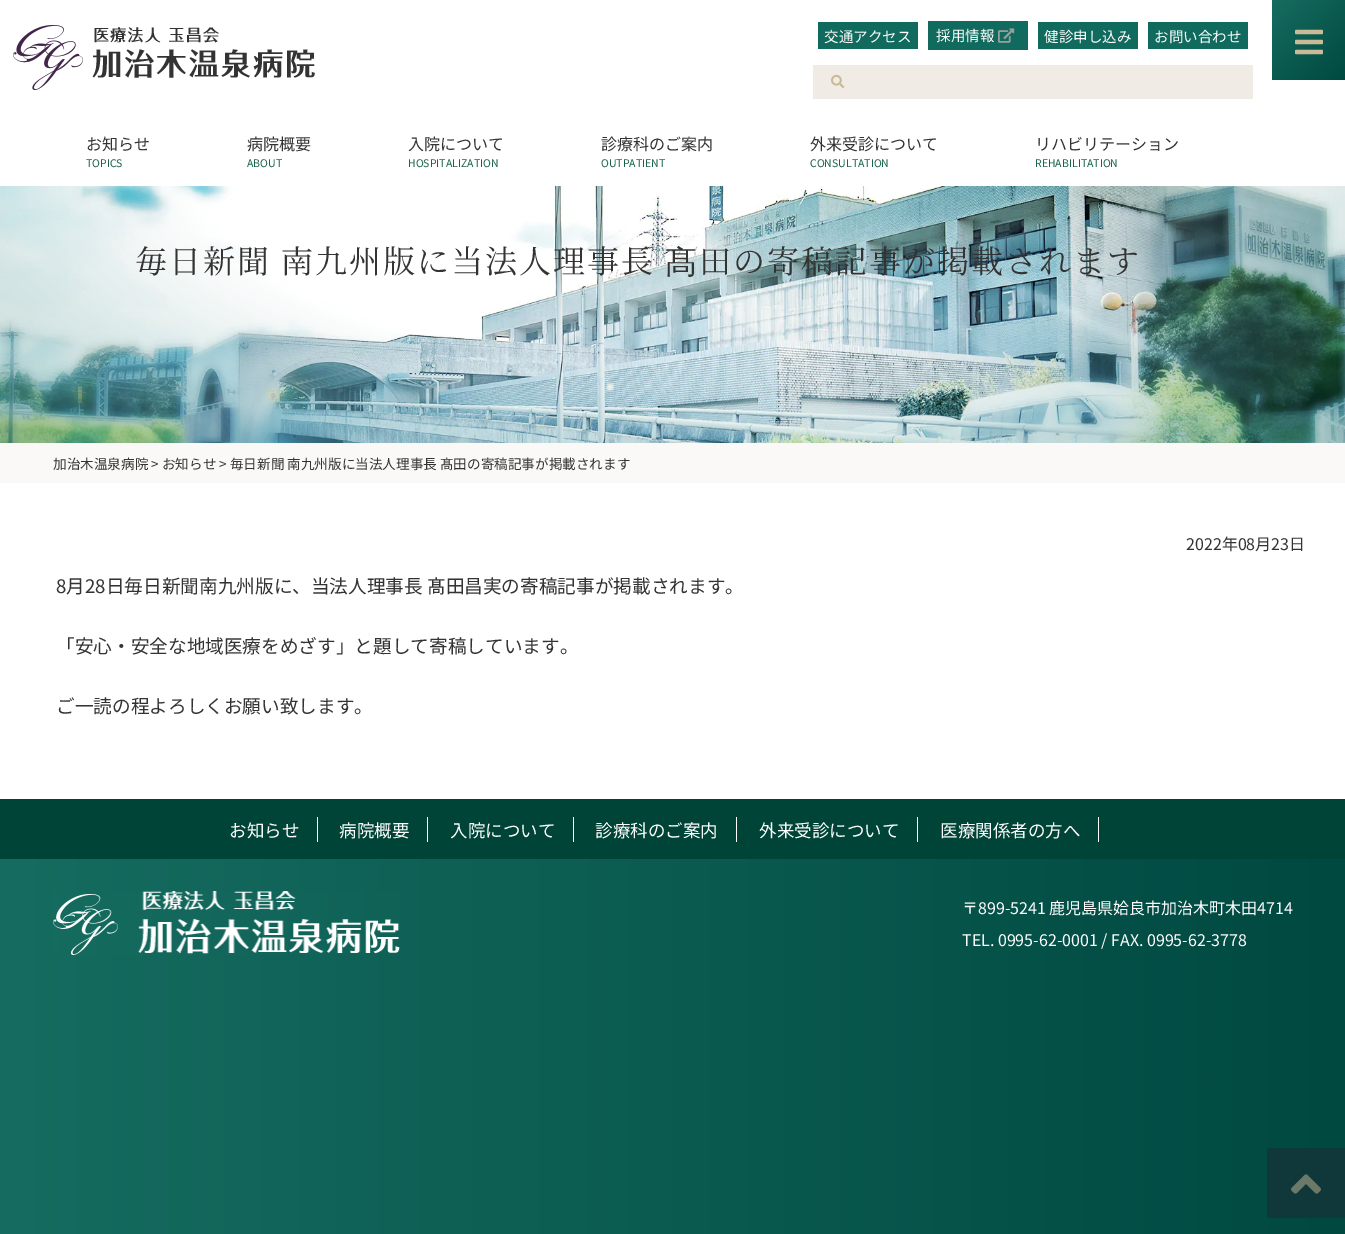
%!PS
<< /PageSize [1345 1234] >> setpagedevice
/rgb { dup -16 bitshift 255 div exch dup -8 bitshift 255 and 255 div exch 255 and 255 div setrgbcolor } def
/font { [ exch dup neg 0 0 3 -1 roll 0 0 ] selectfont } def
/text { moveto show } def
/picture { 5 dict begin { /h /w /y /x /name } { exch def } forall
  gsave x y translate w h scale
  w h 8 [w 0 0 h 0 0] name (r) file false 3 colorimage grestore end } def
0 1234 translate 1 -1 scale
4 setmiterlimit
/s1 { /NotoSansJP-Thin 14.5 font 16#FFFFFF rgb } def
/s2 { /NotoSansJP-Thin 16 font 16#333333 rgb } def
/s3 { /NotoSansJP-Thin 10.5 font 16#19634A rgb } def
/s4 { /NotoSansJP-Thin 13.6 font 16#333333 rgb } def
/s5 { /NotoSansJP-Thin 18.65 font 16#333333 rgb } def
/s6 { /NotoSansJP-Thin 17.5 font 16#FFFFFF rgb } def
/s7 { /NotoSansJP-Thin 16 font 16#FFFFFF rgb } def
16#FAF9F7 rgb
0 0 1345 1234 rectfill
16#FFFFFF rgb
0 0 1345 186 rectfill
(pic1.raw) 13 25 302 65 picture
16#106A5D rgb
818 22 100 27 rectfill
s1
(交通アクセス) 824 42 text
16#106A5D rgb
928 21 100 29 rectfill
s1
(採用情報) 936 41 text
(pic2.raw) 998 28 17 15 picture
16#106A5D rgb
1038 22 100 27 rectfill
s1
(健診申し込み) 1044 42 text
16#106A5D rgb
1148 22 100 27 rectfill
s1
(お問い合わせ) 1154 42 text
16#F0EBE5 rgb
813 65 440 34 rectfill
(pic3.raw) 831 74 14 14 picture
gsave 1272 0 moveto 1345 0 lineto 1345 80 lineto 1272 80 lineto closepath clip newpath
<< /ShadingType 2 /ColorSpace /DeviceRGB /Coords [1270 1.8 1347 78] /Extend [true true] /Function << /FunctionType 2 /Domain [0 1] /C0 [0.086 0.424 0.376] /C1 [0 0.286 0.255] /N 1 >> >> shfill grestore
(pic4.raw) 1295 29 28 26 picture
s2
(お知らせ) 86 150 text
s3
(TOPICS) 86 167 text
s2
(病院概要) 247 150 text
s3
(ABOUT) 247 167 text
s2
(入院について) 408 150 text
s3
(HOSPITALIZATION) 408 167 text
s2
(診療科のご案内) 601 150 text
s3
(OUTPATIENT) 601 167 text
s2
(外来受診について) 810 150 text
s3
(CONSULTATION) 810 167 text
s2
(リハビリテーション) 1035 150 text
s3
(REHABILITATION) 1035 167 text
(pic5.raw) 0 186 1345 257 picture
/NotoSerifCJKJP-Regular 32 font
16#333333 rgb
135 273 moveto 2 0 (毎日新聞 南九州版に当法人理事長) ashow
/WenQuanYiZenHei-Medium 32 font
665 273 moveto 2 0 (髙) ashow
/NotoSerifCJKJP-Regular 32 font
699 273 moveto 2 0 (田の寄稿記事が掲載されます) ashow
s4
(加治木温泉病院 > お知らせ > 毎日新聞 南九州版に当法人理事長 髙田の寄稿記事が掲載されます) 53 469 text
16#FFFFFF rgb
0 483 1345 316 rectfill
s2
(2022年08月23日) 1186 550 text
s5
(8月28日毎日新聞南九州版に、当法人理事長 髙田昌実の寄稿記事が掲載されます。) 56 593 text
(「安心・安全な地域医療をめざす」と題して寄稿しています。) 56 653 text
(ご一読の程よろしくお願い致します。) 56 713 text
16#004437 rgb
0 799 1345 60 rectfill
16#FFFFFF rgb
317 817 1 25 rectfill
s6
(お知らせ) 229 837 text
427 817 1 25 rectfill
(病院概要) 339 837 text
573 817 1 25 rectfill
(入院について) 450 837 text
736 817 1 25 rectfill
(診療科のご案内) 595 837 text
917 817 1 25 rectfill
(外来受診について) 759 837 text
1098 817 1 25 rectfill
(医療関係者の方へ) 940 837 text
gsave 0 859 moveto 1345 859 lineto 1345 1234 lineto 0 1234 lineto closepath clip newpath
<< /ShadingType 2 /ColorSpace /DeviceRGB /Coords [0 1067 1345 1067] /Extend [true true] /Function << /FunctionType 2 /Domain [0 1] /C0 [0.086 0.424 0.376] /C1 [0 0.286 0.255] /N 1 >> >> shfill grestore
(pic6.raw) 53 891 347 64 picture
s7
(〒899-5241 鹿児島県姶良市加治木町木田4714) 962 914 text
(TEL. 0995-62-0001 / FAX. 0995-62-3778) 962 946 text
16#10373A rgb
1267 1148 78 70 rectfill
(pic7.raw) 1291 1174 30 20 picture
showpage
